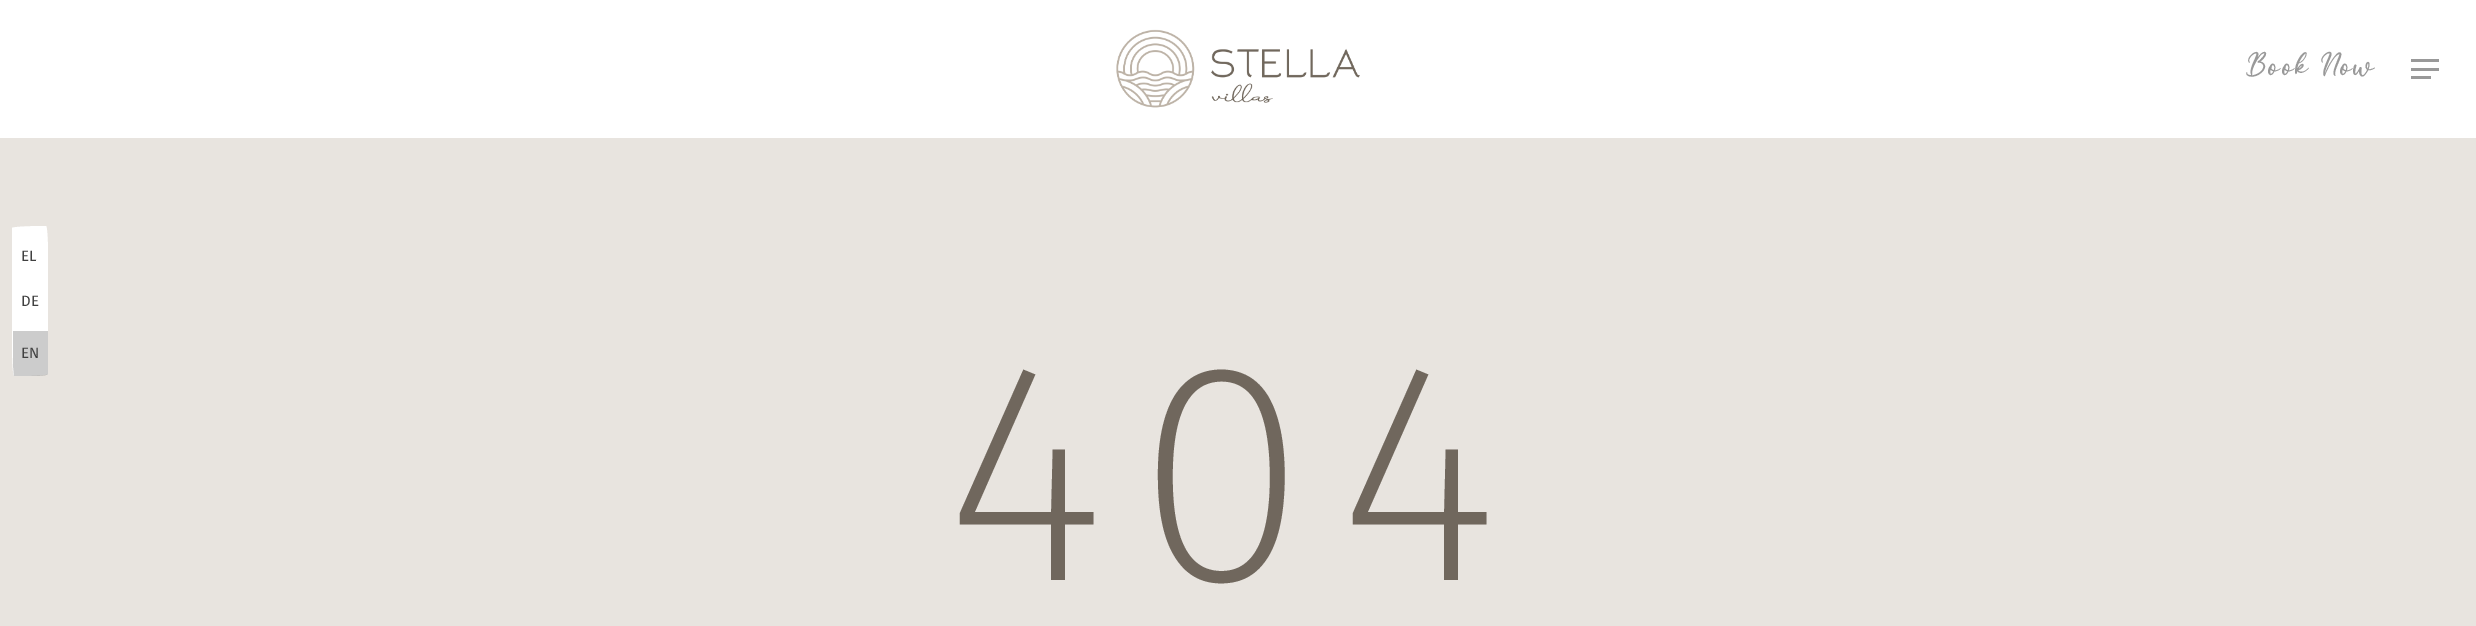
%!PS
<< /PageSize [2476 626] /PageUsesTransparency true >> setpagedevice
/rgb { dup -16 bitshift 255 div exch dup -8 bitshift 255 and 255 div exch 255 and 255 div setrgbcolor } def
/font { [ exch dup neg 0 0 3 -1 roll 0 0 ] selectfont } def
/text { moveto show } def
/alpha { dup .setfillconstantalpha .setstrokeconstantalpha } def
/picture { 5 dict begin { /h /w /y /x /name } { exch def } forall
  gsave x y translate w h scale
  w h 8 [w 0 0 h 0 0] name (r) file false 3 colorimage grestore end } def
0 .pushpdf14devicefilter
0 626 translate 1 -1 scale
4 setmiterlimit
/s1 { /FiraSans-Regular 15 font 16#404040 rgb } def
16#E8E4DF rgb
0 0 2476 626 rectfill
16#FFFFFF rgb
46 226 moveto 47 226 48 239 48 255 curveto 48 374 lineto 48 375 34 376 18 376 curveto 14 376 lineto 13 376 12 361 12 343 curveto 12 228 lineto 12 227 27 226 46 226 curveto closepath fill
s1
(EL) 21 261 text
(DE) 21 306 text
0.2 alpha
16#000000 rgb
13 331 moveto 48 331 lineto 48 374 lineto 48 375 42 376 33 376 curveto 14 376 lineto 13 365 lineto closepath fill
1 alpha
s1
(EN) 21 358 text
16#FFFFFF rgb
0 0 2476 138 rectfill
(pic1.raw) 1116 29 244 79 picture
/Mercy-Regular 25 font
16#999999 rgb
2245 76 moveto 2.5 0 (Book Now) ashow
2411 59 28 3 rectfill
2411 76 20 3 rectfill
2411 68 28 3 rectfill
/FiraSans-ExtraLight 312 font
16#70675D rgb
945 580 moveto 31 0 (404) ashow
.poppdf14devicefilter showpage
